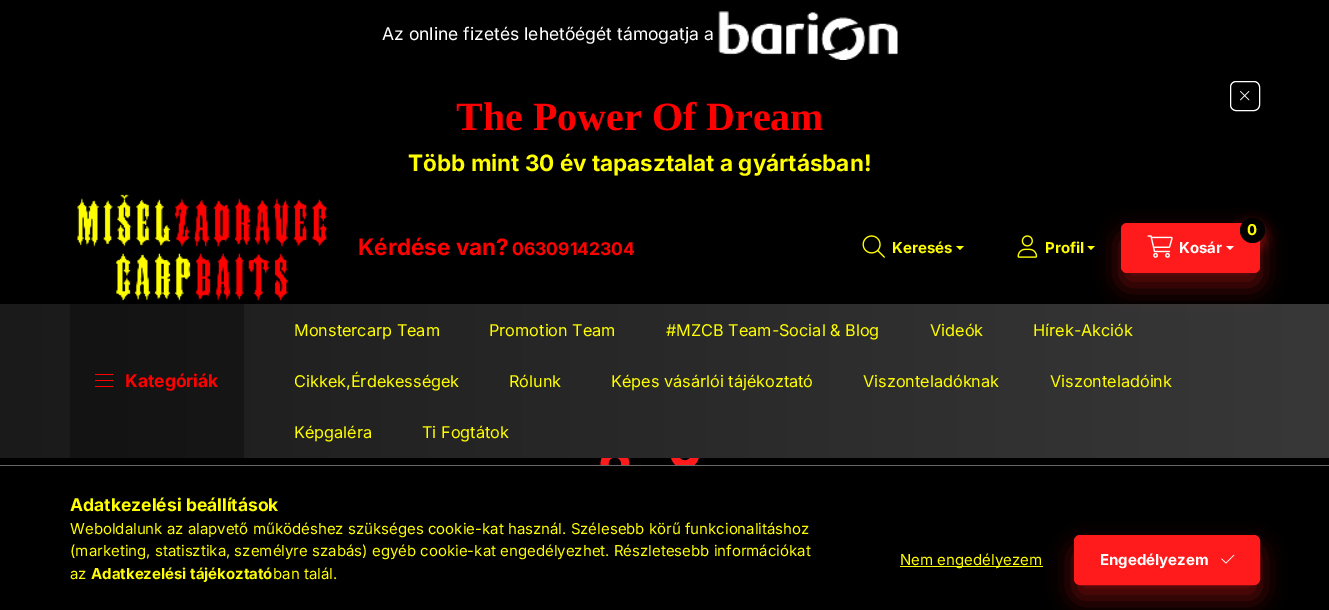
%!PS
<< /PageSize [1329 610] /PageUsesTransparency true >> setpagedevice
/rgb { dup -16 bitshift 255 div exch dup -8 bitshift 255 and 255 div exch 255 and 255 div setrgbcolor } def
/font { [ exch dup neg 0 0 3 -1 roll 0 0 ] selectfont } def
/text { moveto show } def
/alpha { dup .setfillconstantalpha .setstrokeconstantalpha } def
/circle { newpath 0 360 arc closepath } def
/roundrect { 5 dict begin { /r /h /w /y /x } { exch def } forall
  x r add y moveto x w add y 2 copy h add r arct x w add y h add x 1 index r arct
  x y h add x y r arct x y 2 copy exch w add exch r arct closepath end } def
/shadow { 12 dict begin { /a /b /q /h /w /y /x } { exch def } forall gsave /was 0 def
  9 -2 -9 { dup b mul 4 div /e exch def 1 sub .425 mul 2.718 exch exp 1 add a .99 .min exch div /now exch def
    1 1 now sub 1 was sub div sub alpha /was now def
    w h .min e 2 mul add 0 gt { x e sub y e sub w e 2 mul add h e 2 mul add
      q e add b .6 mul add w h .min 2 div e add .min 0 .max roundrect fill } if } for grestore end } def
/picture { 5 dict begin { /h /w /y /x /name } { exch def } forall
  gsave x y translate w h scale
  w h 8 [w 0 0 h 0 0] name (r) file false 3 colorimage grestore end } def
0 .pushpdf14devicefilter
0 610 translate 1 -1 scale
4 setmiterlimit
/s1 { /Inter-Regular 17.5 font 16#FFFFFF rgb } def
/s2 { /LiberationSerif-Bold 40 font 16#FF0000 rgb } def
/s3 { /Inter-Bold 22.5 font 16#FFFF00 rgb } def
/s4 { /Inter-Bold 22.5 font 16#FF0000 rgb } def
/s5 { /Inter-Bold 17.5 font 16#FF0000 rgb } def
/s6 { /Inter-Bold 15 font 16#FFFF00 rgb } def
/s7 { /Inter-Bold 15 font 16#FFFFFF rgb } def
/s8 { /Inter-Regular 16.25 font 16#FFFF00 rgb } def
/s9 { /Inter-Bold 17.5 font 16#FFFF00 rgb } def
/s10 { /Inter-Regular 15 font 16#FFFF00 rgb } def
16#000000 rgb
0 0 1329 610 rectfill
s1
(Az online fizetés lehetőégét támogatja a) 382 40 text
(pic1.raw) 718 11 180 49 picture
1230.5 81.5 29 29 5.5 roundrect stroke
(pic2.raw) 1240 91 10 10 picture
s2
(The Power Of Dream) 456 130 text
s3
(Több mint 30 év tapasztalat a gyártásban!) 408 171 text
(pic3.raw) 77 194 250 107 picture
s4
(Kérdése van?) 358 255 text
s5
(06309142304) 512 255 text
(pic4.raw) 862 235 23 23 picture
s6
(Keresés) 892 253 text
956 246 moveto 964 246 lineto 960 250 lineto closepath fill
(pic5.raw) 1017 235 21 23 picture
gsave 0 304 moveto 1329 304 lineto 1329 458 lineto 0 458 lineto closepath clip newpath
<< /ShadingType 2 /ColorSpace /DeviceRGB /Coords [0 305 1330 305] /Extend [true true] /Function << /FunctionType 2 /Domain [0 1] /C0 [0.102 0.102 0.102] /C1 [0.22 0.22 0.22] /N 1 >> >> shfill grestore
16#FF1B1B rgb
1121 235 139 50 6 12.5 0.4 shadow
s6
(Profil) 1045 253 text
1087.5 246 moveto 1095 246 lineto 1091 250 lineto closepath fill
16#FF1B1B rgb
1121 223 139 50 6 roundrect fill
1240 224 25 25 12.5 6 0.4 shadow
16#000000 rgb
1252.5 230.5 12.5 circle fill
s6
(0) 1247 235 text
(pic6.raw) 1147 235 26 23 picture
s7
(Kosár) 1179 253 text
1226 246 moveto 1234 246 lineto 1230 250 lineto closepath fill
gsave 70 304 moveto 244 304 lineto 244 458 lineto 70 458 lineto closepath clip newpath
<< /ShadingType 2 /ColorSpace /DeviceRGB /Coords [0 305 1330 305] /Extend [true true] /Function << /FunctionType 2 /Domain [0 1] /C0 [0.071 0.071 0.071] /C1 [0.153 0.153 0.153] /N 1 >> >> shfill grestore
16#FF0000 rgb
95 374 18 1 rectfill
95 380 18 1 rectfill
95 386 18 1 rectfill
s5
(Kategóriák) 125 387 text
s8
(Monstercarp Team) 294 336 text
(Promotion Team) 489 336 text
(#MZCB Team-Social & Blog) 666 336 text
(Videók) 930 336 text
(Hírek-Akciók) 1033 336 text
(Cikkek,Érdekességek) 294 387 text
(Rólunk) 509 387 text
(Képes vásárlói tájékoztató) 611 387 text
(Viszonteladóknak) 863 387 text
(Viszonteladóink) 1050 387 text
(Képgaléra) 294 438 text
(Ti Fogtátok) 422 438 text
(pic7.raw) 600 458 99 7 picture
16#666666 rgb
0 465 1329 1 rectfill
s9
(Adatkezelési beállítások) 70 511 text
s10
(Weboldalunk az alapvető működéshez szükséges cookie-kat használ. Szélesebb körű funkcionalitáshoz) 70 534 text
(\(marketing, statisztika, személyre szabás\) egyéb cookie-kat engedélyezhet. Részletesebb információkat) 70 556 text
(az) 70 579 text
s6
(Adatkezelési tájékoztató) 91 579 text
s10
(ban talál.) 273 579 text
900 566 143 1 rectfill
(Nem engedélyezem) 900 565 text
16#FF1B1B rgb
1074 548 186 50 6 12.5 0.4 shadow
1074.5 535.5 185 49 5.5 roundrect gsave fill grestore
stroke
s7
(Engedélyezem) 1100 565 text
(pic8.raw) 1221 554 14 10 picture
.poppdf14devicefilter showpage
